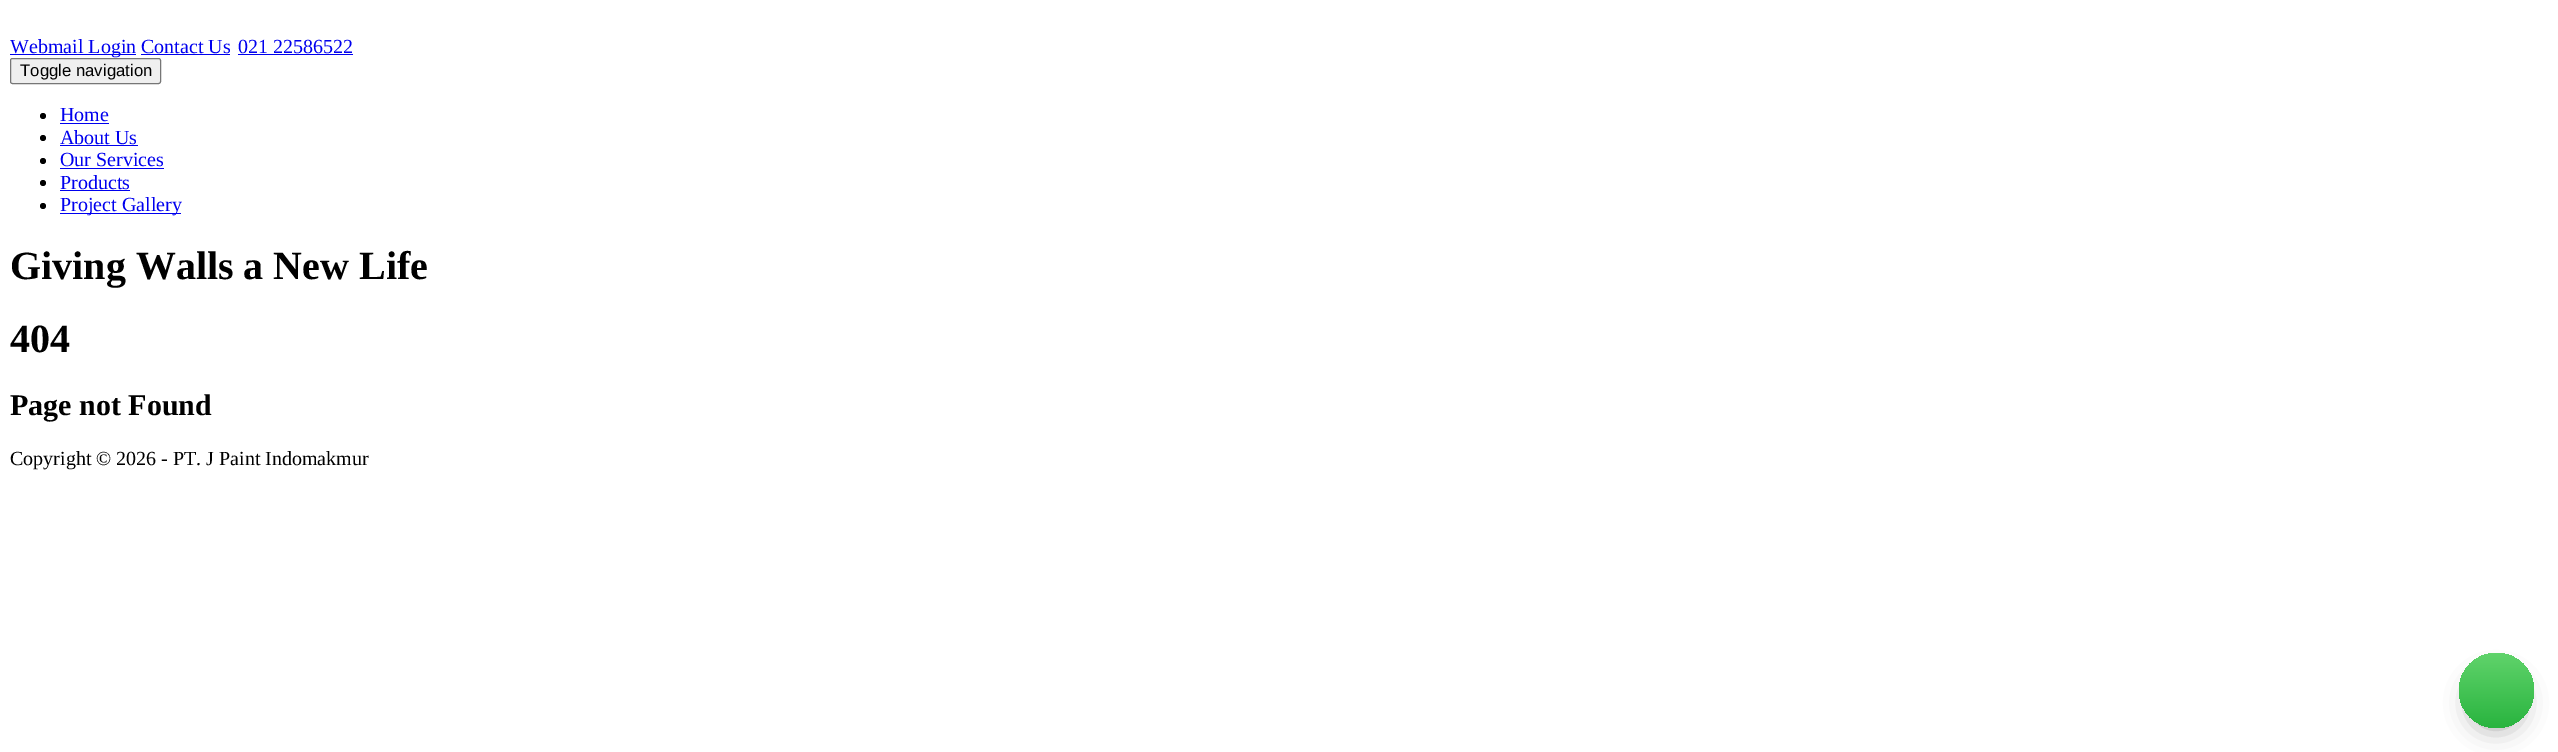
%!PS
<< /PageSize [2558 752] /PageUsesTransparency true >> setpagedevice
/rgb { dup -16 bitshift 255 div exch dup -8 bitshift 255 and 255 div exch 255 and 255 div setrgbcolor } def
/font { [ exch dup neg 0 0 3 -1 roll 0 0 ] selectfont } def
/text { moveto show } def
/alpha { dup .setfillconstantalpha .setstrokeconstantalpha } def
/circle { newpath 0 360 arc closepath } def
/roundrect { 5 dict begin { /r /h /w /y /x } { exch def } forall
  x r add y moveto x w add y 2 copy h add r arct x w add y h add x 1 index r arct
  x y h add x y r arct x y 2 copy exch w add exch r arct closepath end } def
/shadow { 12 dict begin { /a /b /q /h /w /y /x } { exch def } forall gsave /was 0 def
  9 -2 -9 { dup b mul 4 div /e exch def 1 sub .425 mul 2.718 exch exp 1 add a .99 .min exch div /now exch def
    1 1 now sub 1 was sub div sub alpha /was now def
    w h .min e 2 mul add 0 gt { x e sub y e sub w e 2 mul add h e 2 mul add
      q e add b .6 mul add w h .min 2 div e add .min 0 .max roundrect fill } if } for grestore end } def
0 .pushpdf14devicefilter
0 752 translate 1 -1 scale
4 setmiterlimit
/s1 { /LiberationSerif-Regular 20 font 16#0000EE rgb } def
/s2 { /LiberationSans-Regular 16.75 font 16#000000 rgb } def
/s3 { /LiberationSerif-Bold 40 font 16#000000 rgb } def
/s4 { /LiberationSerif-Bold 30 font 16#000000 rgb } def
/s5 { /LiberationSerif-Regular 20 font 16#000000 rgb } def
16#FFFFFF rgb
0 0 2558 752 rectfill
16#0000EE rgb
10 54 126 1 rectfill
s1
(Webmail Login Contact Us) 10 53 text
(021 22586522) 238 53 text
238 54 115 1 rectfill
141 54 89 1 rectfill
16#EFEFEF rgb
10.5 58.5 150 25 2 roundrect gsave fill grestore
16#767676 rgb
stroke
s2
(Toggle navigation) 20 76 text
43 116 3 circle fill
s1
(Home) 60 121 text
60 123 49 1 rectfill
16#000000 rgb
43 138 3 circle fill
s1
(About Us) 60 144 text
60 145 78 1 rectfill
16#000000 rgb
43 161 3 circle fill
s1
(Our Services) 60 166 text
60 168 104 1 rectfill
16#000000 rgb
43 183 3 circle fill
s1
(Products) 60 189 text
60 190 70 1 rectfill
16#000000 rgb
43 206 3 circle fill
16#0000EE rgb
60 213 121 1 rectfill
(Project Gallery) 60 211 text
s3
(Giving Walls a New Life) 10 279 text
(404) 10 352 text
s4
(Page not Found) 10 415 text
s5
(Copyright © 2026 - PT. J Paint Indomakmur) 10 465 text
2471 678 50 50 25 12.5 0.35 shadow
gsave 2496.5 690.5 37.5 circle clip newpath
<< /ShadingType 2 /ColorSpace /DeviceRGB /Coords [2496 728 2496 653] /Extend [true true] /Function << /FunctionType 2 /Domain [0 1] /C0 [0.161 0.706 0.247] /C1 [0.376 0.827 0.42] /N 1 >> >> shfill grestore
.poppdf14devicefilter showpage
